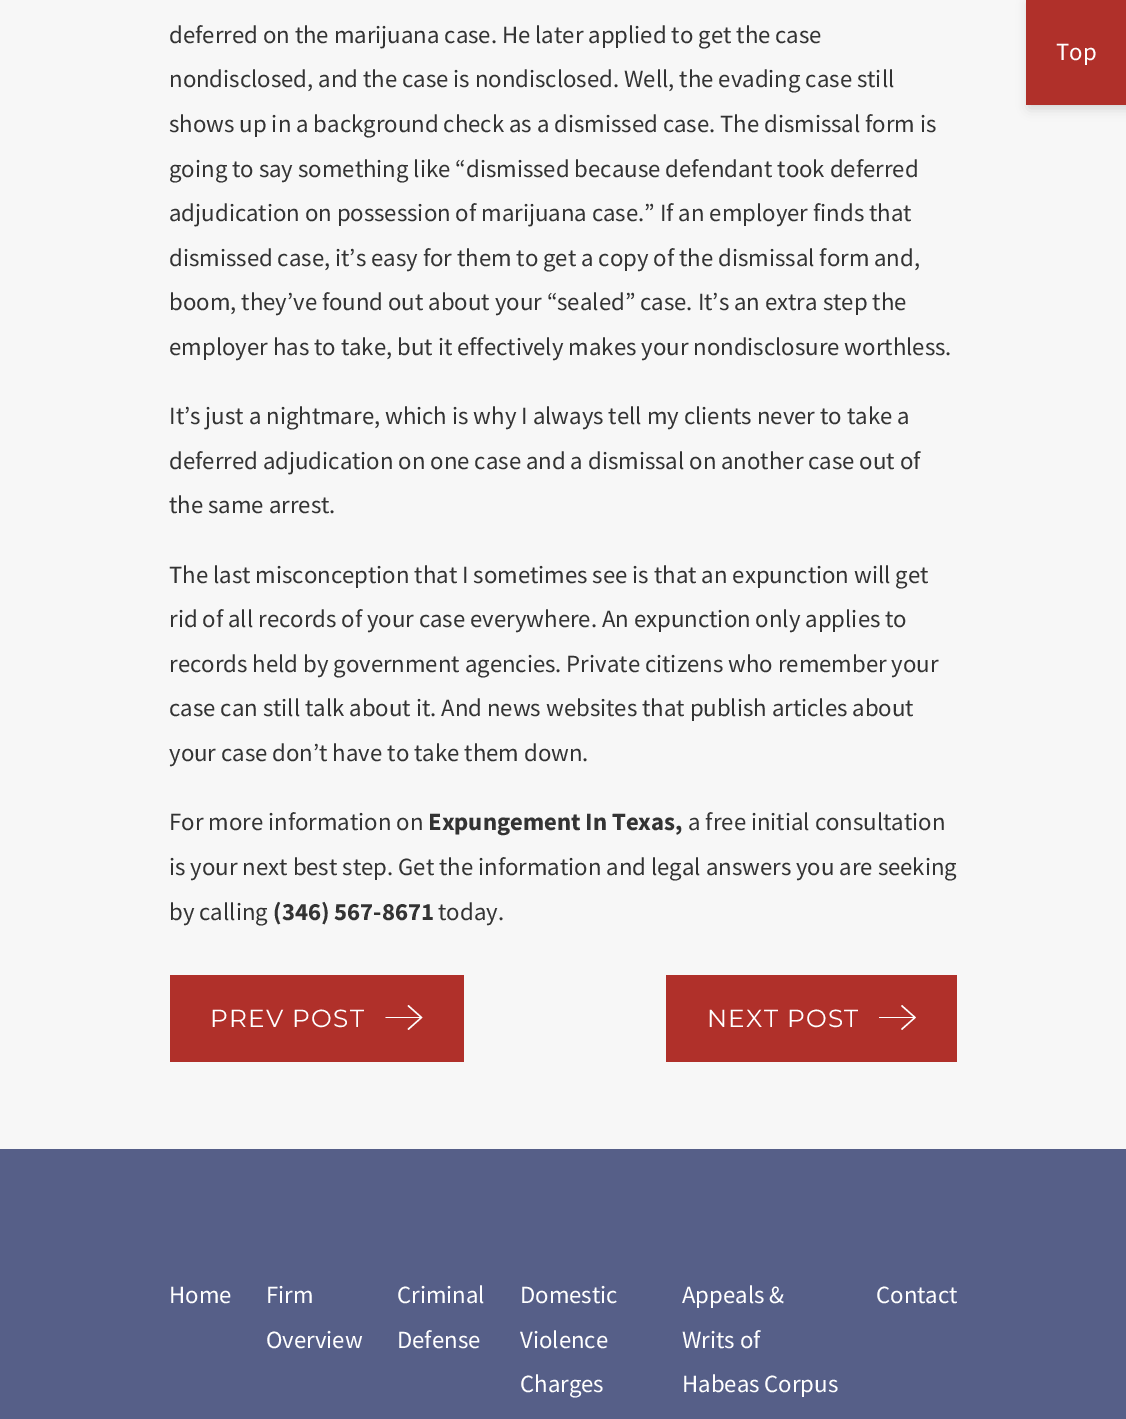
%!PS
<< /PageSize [1126 1419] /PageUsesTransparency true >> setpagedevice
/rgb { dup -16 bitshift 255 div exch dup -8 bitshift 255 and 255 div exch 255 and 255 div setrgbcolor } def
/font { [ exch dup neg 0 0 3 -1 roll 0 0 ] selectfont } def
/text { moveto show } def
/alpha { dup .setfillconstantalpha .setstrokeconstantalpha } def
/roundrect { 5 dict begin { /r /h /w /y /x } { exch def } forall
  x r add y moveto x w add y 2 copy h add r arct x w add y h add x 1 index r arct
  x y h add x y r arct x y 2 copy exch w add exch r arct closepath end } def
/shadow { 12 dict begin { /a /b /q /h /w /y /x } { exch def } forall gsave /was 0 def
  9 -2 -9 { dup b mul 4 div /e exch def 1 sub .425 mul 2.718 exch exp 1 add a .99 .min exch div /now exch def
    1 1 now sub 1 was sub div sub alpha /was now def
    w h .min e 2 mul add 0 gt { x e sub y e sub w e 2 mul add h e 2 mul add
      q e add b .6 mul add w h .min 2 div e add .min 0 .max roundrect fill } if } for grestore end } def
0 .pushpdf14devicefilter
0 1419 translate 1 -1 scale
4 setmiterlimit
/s1 { /SourceSansPro-Regular 24.75 font 16#333333 rgb } def
/s2 { /SourceSansPro-Bold 24.75 font 16#333333 rgb } def
/s3 { /SourceSansPro-Regular 24.75 font 16#FFFFFF rgb } def
16#F7F7F7 rgb
0 0 1126 1419 rectfill
s1
(deferred on the marijuana case. He later applied to get the case) 169 43 text
(nondisclosed, and the case is nondisclosed. Well, the evading case still) 169 87 text
(shows up in a background check as a dismissed case. The dismissal form is) 169 132 text
(going to say something like “dismissed because defendant took deferred) 169 177 text
(adjudication on possession of marijuana case.” If an employer finds that) 169 221 text
(dismissed case, it’s easy for them to get a copy of the dismissal form and,) 169 266 text
(boom, they’ve found out about your “sealed” case. It’s an extra step the) 169 310 text
(employer has to take, but it effectively makes your nondisclosure worthless.) 169 355 text
(It’s just a nightmare, which is why I always tell my clients never to take a) 169 424 text
(deferred adjudication on one case and a dismissal on another case out of) 169 469 text
(the same arrest.) 169 513 text
(The last misconception that I sometimes see is that an expunction will get) 169 583 text
(rid of all records of your case everywhere. An expunction only applies to) 169 627 text
(records held by government agencies. Private citizens who remember your) 169 672 text
(case can still talk about it. And news websites that publish articles about) 169 716 text
(your case don’t have to take them down.) 169 761 text
(For more information on) 169 830 text
s2
(Expungement In Texas,) 428 830 text
s1
(a free initial consultation) 688 830 text
(is your next best step. Get the information and legal answers you are seeking) 169 875 text
(by calling) 169 920 text
s2
(\(346\) 567-8671) 273 920 text
s1
(today.) 438 920 text
16#B0302A rgb
170 975 294 87 rectfill
/Montserrat-Regular 24.75 font
16#FFFFFF rgb
210 1027 moveto 1.25 0 (PREV POST) ashow
407.5 1029 moveto 408.5 1030 lineto 422.5 1017.5 lineto 408.5 1005 lineto 407.5 1006 lineto 420 1017 lineto 385.5 1017 lineto 385.5 1018 lineto 420 1018 lineto closepath fill
16#B0302A rgb
666 975 291 87 rectfill
16#FFFFFF rgb
707 1027 moveto 1.25 0 (NEXT POST) ashow
901 1029 moveto 902 1030 lineto 916 1017.5 lineto 902 1005 lineto 901 1006 lineto 913.5 1017 lineto 879 1017 lineto 879 1018 lineto 913.5 1018 lineto closepath fill
16#000000 rgb
1029 3 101 105 0 6 0.16 shadow
16#B0302A rgb
1026 0 100 105 rectfill
s3
(Top) 1056 60 text
16#565F88 rgb
0 1149 1126 270 rectfill
s3
(Home) 169 1303 text
(Firm) 266 1303 text
(Overview) 266 1348 text
(Criminal) 397 1303 text
(Defense) 397 1348 text
(Domestic) 520 1303 text
(Violence) 520 1348 text
(Charges) 520 1392 text
(Appeals &) 682 1303 text
(Writs of) 682 1348 text
(Habeas Corpus) 682 1392 text
(Contact) 876 1303 text
.poppdf14devicefilter showpage
